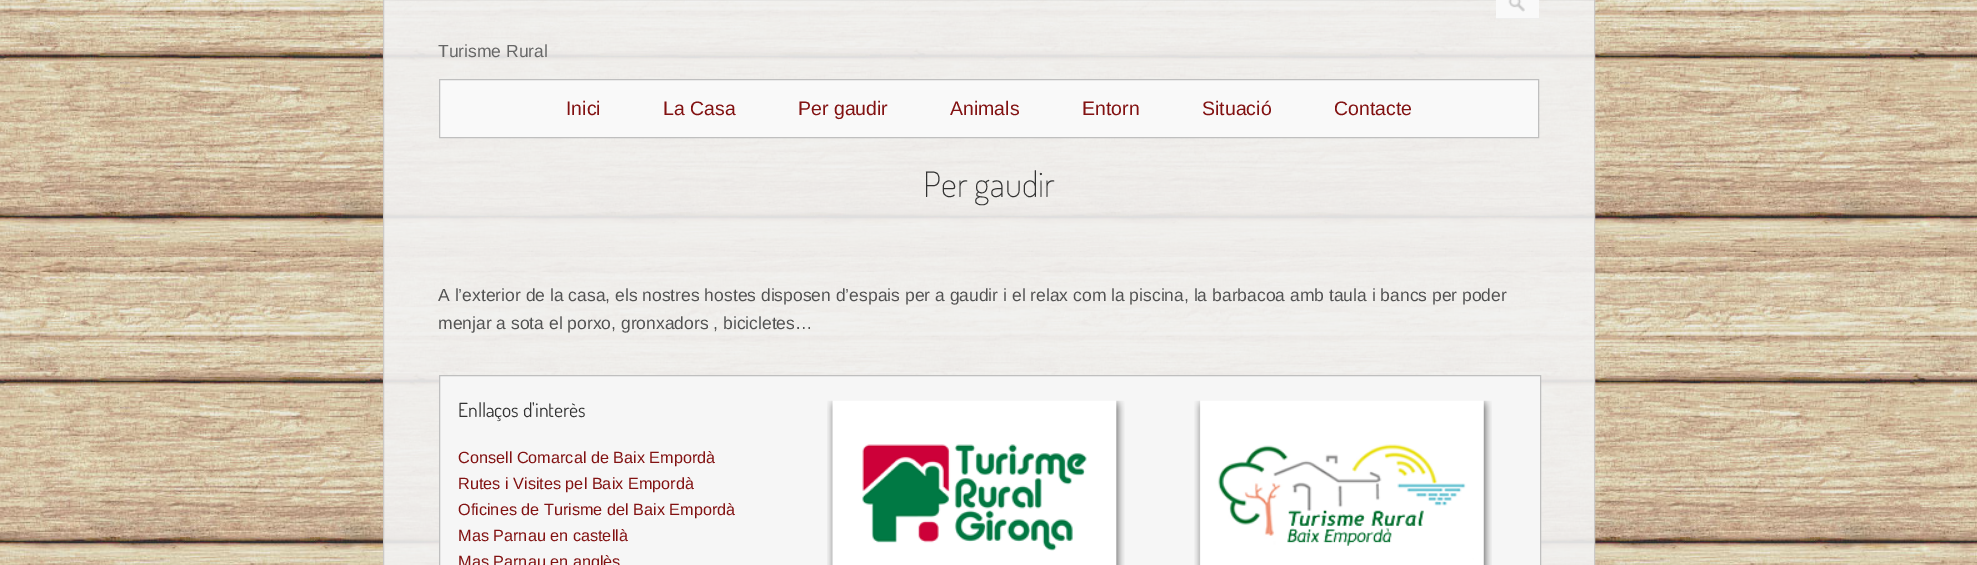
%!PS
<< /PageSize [1977 565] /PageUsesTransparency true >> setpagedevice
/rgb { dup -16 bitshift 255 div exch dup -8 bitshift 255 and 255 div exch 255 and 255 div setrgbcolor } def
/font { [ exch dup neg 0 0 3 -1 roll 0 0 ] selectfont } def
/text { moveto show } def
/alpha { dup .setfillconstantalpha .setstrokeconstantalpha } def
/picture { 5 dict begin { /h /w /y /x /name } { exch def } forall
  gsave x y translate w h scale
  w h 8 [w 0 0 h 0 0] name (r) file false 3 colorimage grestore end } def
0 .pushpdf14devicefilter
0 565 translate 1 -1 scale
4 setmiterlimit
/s1 { /LiberationSans-Regular 17.5 font 16#666666 rgb } def
/s2 { /LiberationSans-Regular 19.5 font 16#821212 rgb } def
/s3 { /Dosis-ExtraLight 35 font 16#333333 rgb } def
/s4 { /LiberationSans-Regular 17.5 font 16#525252 rgb } def
/s5 { /Dosis-Regular 19.5 font 16#333333 rgb } def
/s6 { /LiberationSans-Regular 16.25 font 16#821212 rgb } def
16#FFFFFF rgb
0 0 1977 565 rectfill
(pic1.raw) 0 0 1977 565 picture
0.9 alpha
16#F2F2F2 rgb
383.5 -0.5 moveto 1594.5 -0.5 lineto 1594.5 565.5 lineto 383.5 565.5 lineto closepath fill
1 alpha
16#CBC9C7 rgb
383.5 -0.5 moveto 1594.5 -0.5 lineto 1594.5 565.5 lineto 383.5 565.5 lineto closepath stroke
16#F9F9F9 rgb
1496 0 43 18 rectfill
(pic2.raw) 1508 0 17 12 picture
16#EEEEEE rgb
1496 18 43 1 rectfill
s1
(Turisme Rural) 438 57 text
16#F9F9F9 rgb
439.5 79.5 moveto 1538.5 79.5 lineto 1538.5 137.5 lineto 439.5 137.5 lineto closepath gsave fill grestore
16#BFBFBF rgb
stroke
s2
(Inici) 566 115 text
(La Casa) 663 115 text
(Per gaudir) 798 115 text
(Animals) 950 115 text
(Entorn) 1082 115 text
(Situació) 1202 115 text
(Contacte) 1334 115 text
s3
(Per gaudir) 923 197 text
s4
(A l’exterior de la casa, els nostres hostes disposen d’espais per a gaudir i el relax com la piscina, la barbacoa amb taula i bancs per poder) 438 301 text
(menjar a sota el porxo, gronxadors , bicicletes…) 438 329 text
16#F6F6F6 rgb
439.5 375.5 moveto 1540.5 375.5 lineto 1540.5 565.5 lineto 439.5 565.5 lineto closepath gsave fill grestore
16#BFBFBF rgb
stroke
s5
(Enllaços d'interès) 458 417 text
s6
(Consell Comarcal de Baix Empordà) 458 463 text
(Rutes i Visites pel Baix Empordà) 458 489 text
(Oficines de Turisme del Baix Empordà) 458 515 text
(Mas Parnau en castellà) 458 541 text
(Mas Parnau en anglès) 458 567 text
(pic3.raw) 827 400 298 165 picture
(pic4.raw) 1194 400 298 165 picture
.poppdf14devicefilter showpage
